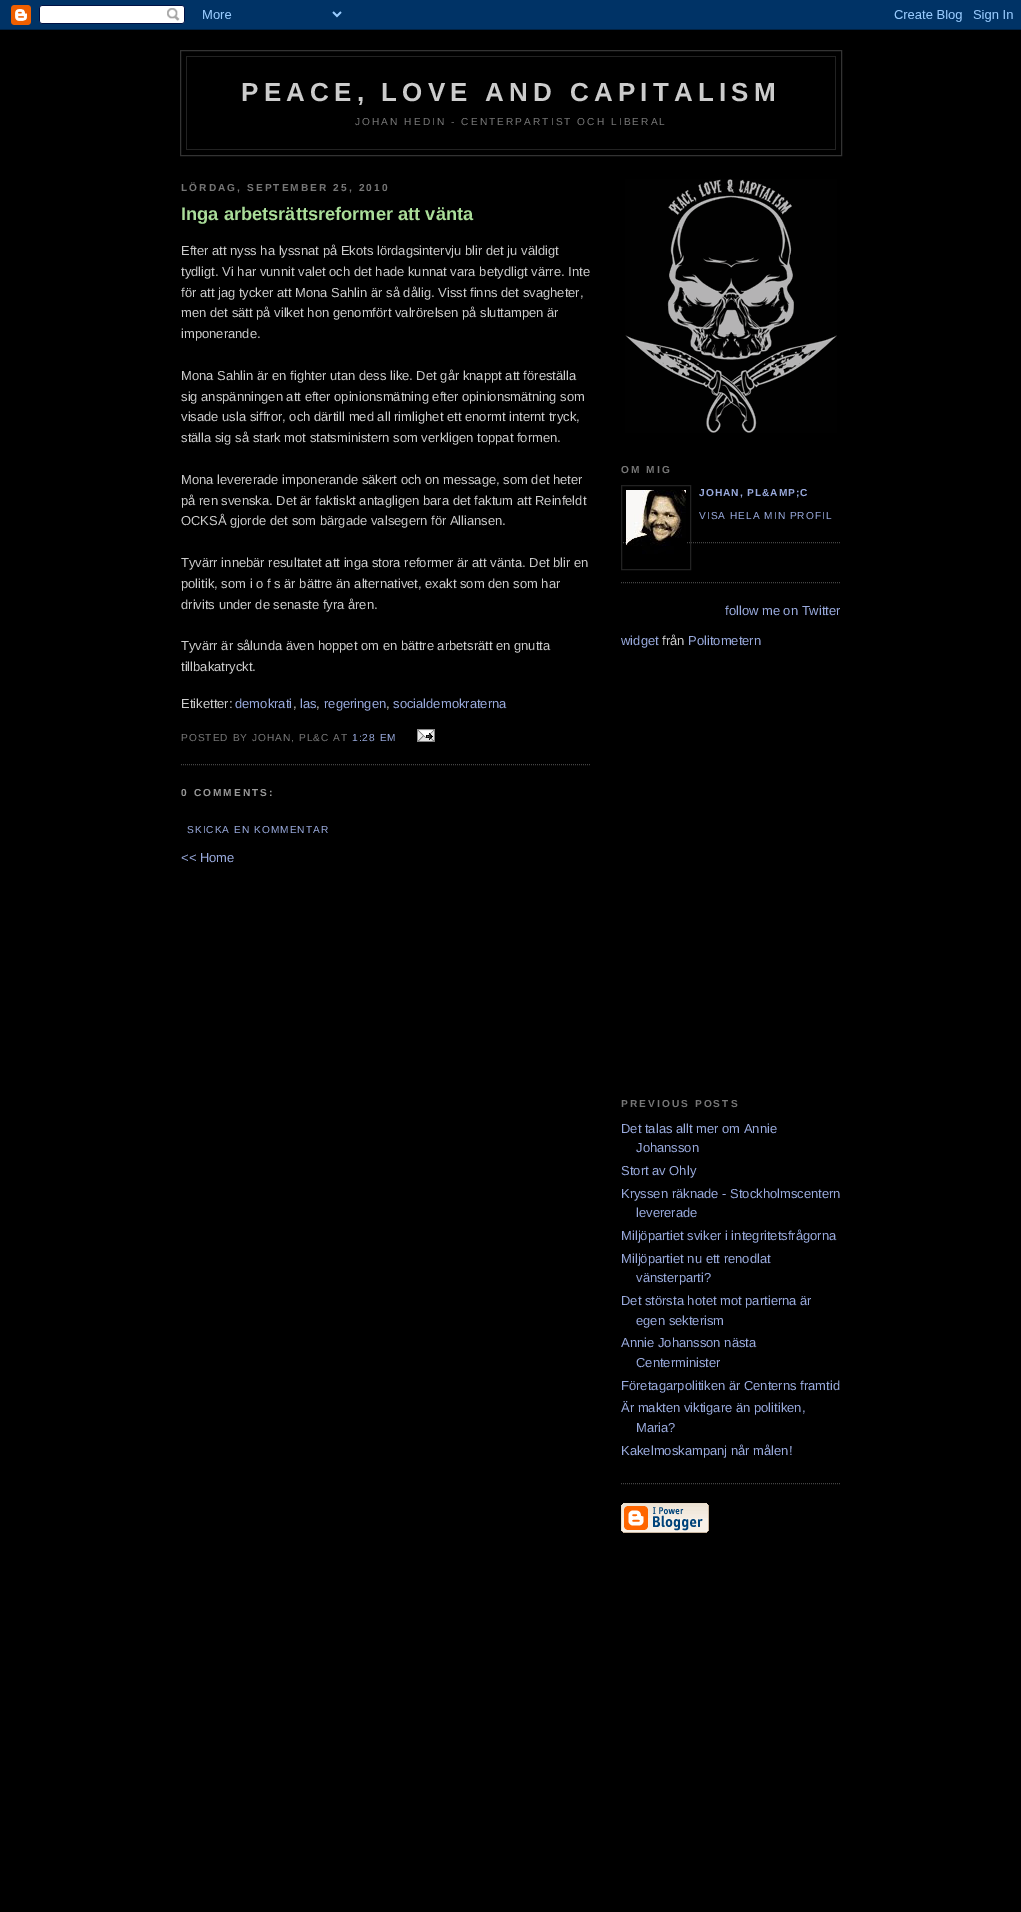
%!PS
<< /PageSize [1021 1912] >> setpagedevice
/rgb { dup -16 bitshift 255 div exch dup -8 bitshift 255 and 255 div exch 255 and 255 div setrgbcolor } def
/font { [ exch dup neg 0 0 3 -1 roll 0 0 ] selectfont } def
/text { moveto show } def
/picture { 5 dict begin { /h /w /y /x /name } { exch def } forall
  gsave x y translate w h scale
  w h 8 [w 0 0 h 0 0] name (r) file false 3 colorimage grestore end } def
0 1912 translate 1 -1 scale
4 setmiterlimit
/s1 { /LiberationSans-Bold 18.25 font 16#AADD99 rgb } def
/s2 { /LiberationSans-Regular 13 font 16#CCCCCC rgb } def
/s3 { /LiberationSans-Regular 13 font 16#99AADD rgb } def
16#000000 rgb
0 0 1021 1912 rectfill
(pic1.raw) 0 0 1021 30 picture
16#333333 rgb
180.5 50.5 661 105 rectstroke
16#222222 rgb
186 56 650 1 rectfill
835 56 1 94 rectfill
186 56 1 59 rectfill
/LiberationSans-Bold 26 font
16#CCCCCC rgb
241 101 moveto 5.2 0 (PEACE, LOVE AND CAPITALISM) ashow
16#222222 rgb
186 149 650 1 rectfill
186 115 1 35 rectfill
/LiberationSans-Regular 10.15 font
16#777777 rgb
355 125 moveto 2.05 0 (JOHAN HEDIN - CENTERPARTIST OCH LIBERAL) ashow
/LiberationSans-Bold 10.15 font
181 191 moveto 2.05 0 (LÖRDAG, SEPTEMBER 25, 2010) ashow
16#444444 rgb
[1 1] 0 setdash
181 764.5 moveto 591 764.5 lineto stroke
s1
(Inga arbetsrättsreformer att vänta) 181 220 text
s2
(Efter att nyss ha lyssnat på Ekots lördagsintervju blir det ju väldigt) 181 255 text
(tydligt. Vi har vunnit valet och det hade kunnat vara betydligt värre. Inte) 181 276 text
(för att jag tycker att Mona Sahlin är så dålig. Visst finns det svagheter,) 181 297 text
(men det sätt på vilket hon genomfört valrörelsen på sluttampen är) 181 317 text
(imponerande.) 181 338 text
(Mona Sahlin är en fighter utan dess like. Det går knappt att föreställa) 181 380 text
(sig anspänningen att efter opinionsmätning efter opinionsmätning som) 181 401 text
(visade usla siffror, och därtill med all rimlighet ett enormt internt tryck,) 181 421 text
(ställa sig så stark mot statsministern som verkligen toppat formen.) 181 442 text
(Mona levererade imponerande säkert och on message, som det heter) 181 484 text
(på ren svenska. Det är faktiskt antagligen bara det faktum att Reinfeldt) 181 505 text
(OCKSÅ gjorde det som bärgade valsegern för Alliansen.) 181 525 text
(Tyvärr innebär resultatet att inga stora reformer är att vänta. Det blir en) 181 567 text
(politik, som i o f s är bättre än alternativet, exakt som den som har) 181 588 text
(drivits under de senaste fyra åren.) 181 609 text
(Tyvärr är sålunda även hoppet om en bättre arbetsrätt en gnutta) 181 650 text
(tillbakatryckt.) 181 671 text
(Etiketter:) 181 708 text
s3
(demokrati) 235 708 text
s2
(,) 293 708 text
s3
(las) 300 708 text
s2
(,) 316 708 text
s3
(regeringen) 324 708 text
s2
(,) 386 708 text
s3
(socialdemokraterna) 393 708 text
/LiberationSans-Regular 10.15 font
16#777777 rgb
181 741 moveto 1 0 (POSTED BY JOHAN, PL&C AT) ashow
16#99AADD rgb
352 741 moveto 1 0 (1:28 EM) ashow
(pic2.raw) 417 729 18 13 picture
/LiberationSans-Bold 10.15 font
16#999999 rgb
181 796 moveto 2.05 0 (0 COMMENTS:) ashow
/LiberationSans-Regular 10.15 font
16#99AADD rgb
187 833 moveto 1 0 (SKICKA EN KOMMENTAR) ashow
s3
(<< Home) 181 862 text
(pic3.raw) 625 179 212 254 picture
16#444444 rgb
621 542.5 moveto 841 542.5 lineto stroke
/LiberationSans-Bold 10.15 font
16#777777 rgb
621 473 moveto 2.05 0 (OM MIG) ashow
16#222222 rgb
[] 0 setdash
621.5 485.5 69 84 rectstroke
(pic4.raw) 626 490 60 64 picture
16#99AADD rgb
699 496 moveto 1 0 (JOHAN, PL&AMP;C) ashow
/LiberationSans-Regular 10.15 font
699 519 moveto 1 0 (VISA HELA MIN PROFIL) ashow
16#444444 rgb
[1 1] 0 setdash
621 582.5 moveto 841 582.5 lineto stroke
s3
(follow me on Twitter) 725 615 text
(widget) 621 645 text
s2
(från) 662 645 text
s3
(Politometern) 688 645 text
/LiberationSans-Bold 10.15 font
16#777777 rgb
621 1107 moveto 2.05 0 (PREVIOUS POSTS) ashow
16#444444 rgb
621 1483.5 moveto 841 1483.5 lineto stroke
s3
(Det talas allt mer om Annie) 621 1133 text
(Johansson) 636 1152 text
(Stort av Ohly) 621 1175 text
(Kryssen räknade - Stockholmscentern) 621 1198 text
(levererade) 636 1217 text
(Miljöpartiet sviker i integritetsfrågorna) 621 1240 text
(Miljöpartiet nu ett renodlat) 621 1263 text
(vänsterparti?) 636 1282 text
(Det största hotet mot partierna är) 621 1305 text
(egen sekterism) 636 1325 text
(Annie Johansson nästa) 621 1347 text
(Centerminister) 636 1367 text
(Företagarpolitiken är Centerns framtid) 621 1390 text
(Är makten viktigare än politiken,) 621 1412 text
(Maria?) 636 1432 text
(Kakelmoskampanj når målen!) 621 1455 text
(pic5.raw) 621 1503 88 30 picture
showpage
